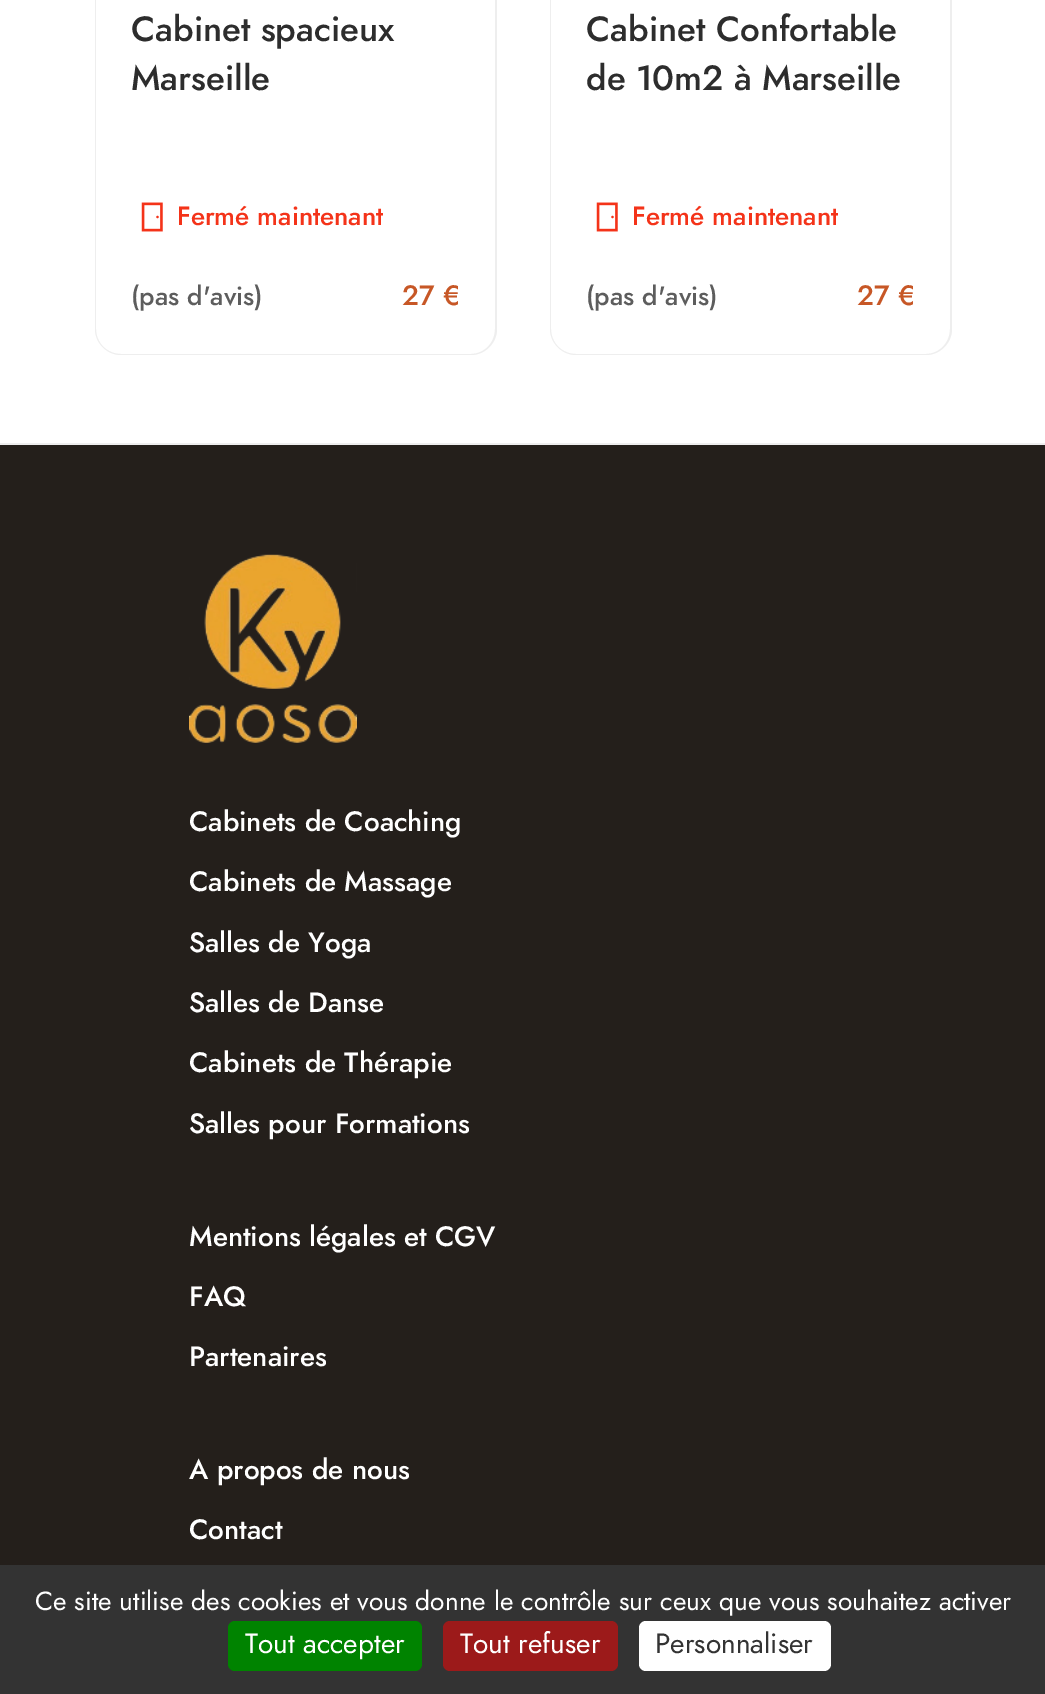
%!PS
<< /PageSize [1045 1694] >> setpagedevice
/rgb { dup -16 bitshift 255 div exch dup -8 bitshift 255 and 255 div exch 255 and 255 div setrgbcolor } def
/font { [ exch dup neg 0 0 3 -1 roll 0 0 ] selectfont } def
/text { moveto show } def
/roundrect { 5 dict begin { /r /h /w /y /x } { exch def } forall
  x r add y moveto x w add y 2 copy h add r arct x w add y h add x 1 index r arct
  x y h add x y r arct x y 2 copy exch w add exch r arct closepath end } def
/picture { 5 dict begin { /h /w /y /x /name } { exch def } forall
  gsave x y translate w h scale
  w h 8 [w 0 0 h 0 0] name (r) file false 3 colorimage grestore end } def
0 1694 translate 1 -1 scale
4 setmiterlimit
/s1 { /Jost-Medium 35 font 16#2D2D2D rgb } def
/s2 { /Jost-Medium 26.25 font 16#F43319 rgb } def
/s3 { /Jost-Medium 26.25 font 16#5D5D5D rgb } def
/s4 { /Jost-Medium 28 font 16#C75726 rgb } def
/s5 { /Jost-Medium 28 font 16#FFFFFF rgb } def
/s6 { /Jost-Regular 26.25 font 16#FFFFFF rgb } def
/s7 { /Jost-Regular 28 font 16#FFFFFF rgb } def
/s8 { /Jost-Regular 28 font 16#333333 rgb } def
16#FFFFFF rgb
0 0 1045 1694 rectfill
16#EEEEEE rgb
96 -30 moveto 96 329 lineto 96 343 107 354 121 354 curveto 471 354 lineto 484 354 495 343 495 329 curveto 495 -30 lineto 497 -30 lineto 497 329 lineto 497 343 485 355 471 355 curveto 121 355 lineto 107 355 95 343 95 329 curveto 95 -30 lineto closepath fill
s1
(Cabinet spacieux) 131 41 text
(Marseille) 131 90 text
(pic1.raw) 141 202 22 30 picture
s2
(Fermé maintenant) 177 225 text
s3
(\(pas d'avis\)) 131 305 text
s4
(27 €) 402 305 text
16#EEEEEE rgb
551 -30 moveto 550 -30 lineto 550 329 lineto 550 343 562 355 576 355 curveto 926 355 lineto 940 355 952 343 952 329 curveto 952 -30 lineto 950 -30 lineto 950 329 lineto 950 343 939 354 926 354 curveto 576 354 lineto 562 354 551 343 551 329 curveto closepath fill
s1
(Cabinet Confortable) 586 41 text
(de 10m2 à Marseille) 586 90 text
(pic1.raw) 596 202 22 30 picture
s2
(Fermé maintenant) 632 225 text
s3
(\(pas d'avis\)) 586 305 text
s4
(27 €) 857 305 text
16#241F1B rgb
0 445 1045 1120 rectfill
16#EEEEEE rgb
0 443 1045 2 rectfill
(pic2.raw) 189 554 168 189 picture
s5
(Cabinets de Coaching) 189 831 text
(Cabinets de Massage) 189 891 text
(Salles de Yoga) 189 952 text
(Salles de Danse) 189 1012 text
(Cabinets de Thérapie) 189 1072 text
(Salles pour Formations) 189 1133 text
(Mentions légales et CGV) 189 1246 text
(FAQ) 189 1306 text
(Partenaires) 189 1366 text
(A propos de nous) 189 1479 text
(Contact) 189 1539 text
16#333333 rgb
0 1565 1045 129 rectfill
s6
(Ce site utilise des cookies et vous donne le contrôle sur ceux que vous souhaitez activer) 35 1610 text
16#008300 rgb
228 1621 194 50 7 roundrect fill
s7
(Tout accepter) 245 1653 text
16#9C1A1A rgb
443 1621 175 50 7 roundrect fill
s7
(Tout refuser) 460 1653 text
639 1621 192 50 7 roundrect fill
s8
(Personnaliser) 655 1653 text
showpage
